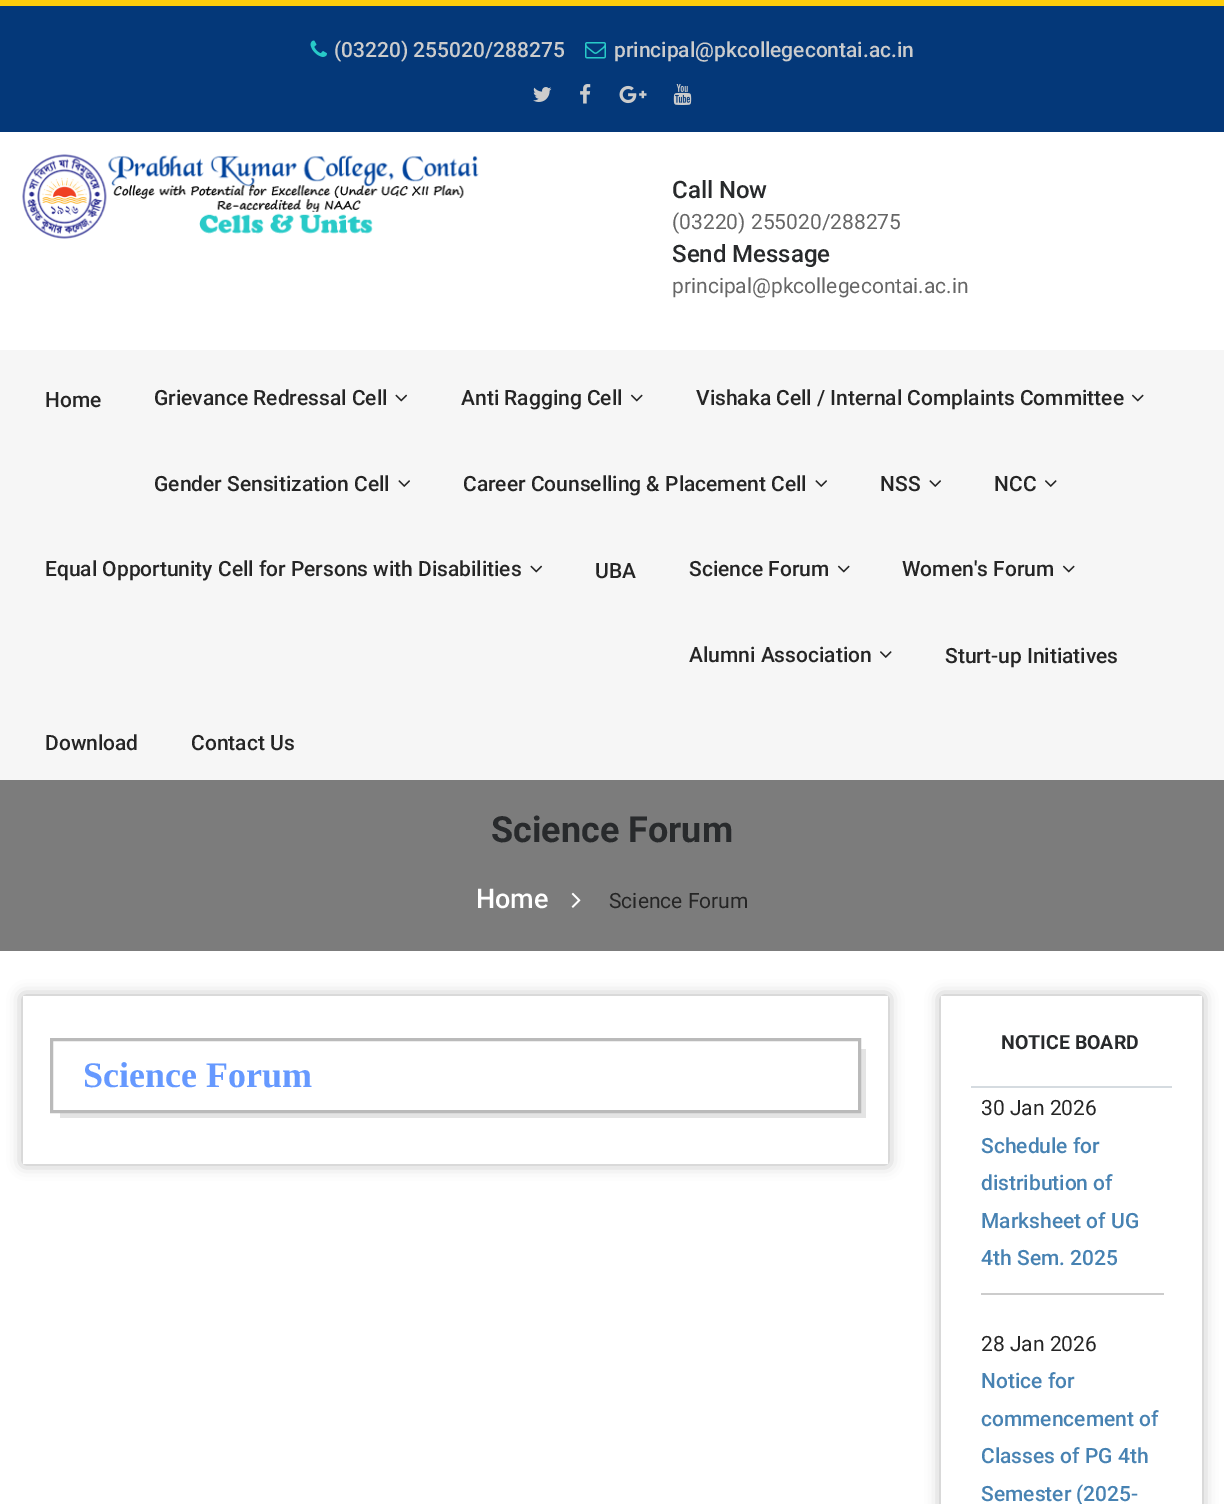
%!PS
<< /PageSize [1224 1504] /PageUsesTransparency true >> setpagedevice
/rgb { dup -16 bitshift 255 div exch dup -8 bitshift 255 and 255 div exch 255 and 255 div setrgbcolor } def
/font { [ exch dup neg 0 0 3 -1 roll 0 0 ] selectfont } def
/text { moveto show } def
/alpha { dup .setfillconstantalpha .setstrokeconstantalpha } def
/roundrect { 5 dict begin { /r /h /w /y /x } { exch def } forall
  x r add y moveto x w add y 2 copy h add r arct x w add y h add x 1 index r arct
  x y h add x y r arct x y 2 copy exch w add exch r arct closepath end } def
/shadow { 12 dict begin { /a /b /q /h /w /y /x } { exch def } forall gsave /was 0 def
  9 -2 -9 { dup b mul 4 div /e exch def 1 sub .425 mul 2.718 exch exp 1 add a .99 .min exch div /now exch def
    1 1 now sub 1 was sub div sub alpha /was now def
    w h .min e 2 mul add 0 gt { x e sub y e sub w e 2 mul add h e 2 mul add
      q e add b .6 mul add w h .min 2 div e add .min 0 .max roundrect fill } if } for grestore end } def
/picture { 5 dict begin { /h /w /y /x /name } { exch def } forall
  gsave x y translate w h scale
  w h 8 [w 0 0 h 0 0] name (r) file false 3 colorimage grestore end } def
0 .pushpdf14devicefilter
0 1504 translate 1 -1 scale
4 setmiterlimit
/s1 { /Roboto-Medium 21 font 16#CCCCCC rgb } def
/s2 { /Roboto-Medium 24 font 16#282A2C rgb } def
/s3 { /Roboto-Regular 21 font 16#666666 rgb } def
/s4 { /Roboto-Medium 21 font 16#252525 rgb } def
/s5 { /Roboto-Bold 36 font 16#282A2C rgb } def
/s6 { /Roboto-Medium 27 font 16#FFFFFF rgb } def
/s7 { /Roboto-Regular 21 font 16#252525 rgb } def
/s8 { /LiberationSerif-Bold 36 font 16#6699FF rgb } def
/s9 { /Roboto-Bold 19.5 font 16#282A2C rgb } def
/s10 { /Roboto-Medium 21 font 16#4782B2 rgb } def
16#FFFFFF rgb
0 0 1224 1504 rectfill
16#FECD0B rgb
0 0 1224 6 rectfill
16#043879 rgb
0 6 1224 126 rectfill
(pic1.raw) 310 40 17 17 picture
s1
(\(03220\) 255020/288275) 334 57 text
(pic2.raw) 585 42 21 17 picture
(principal@pkcollegecontai.ac.in) 614 57 text
(pic3.raw) 533 87 19 15 picture
(pic4.raw) 580 84 11 20 picture
(pic5.raw) 619 85 28 19 picture
(pic6.raw) 673 84 19 21 picture
(pic7.raw) 22 154 457 85 picture
s2
(Call Now) 672 198 text
s3
(\(03220\) 255020/288275) 672 229 text
s2
(Send Message) 672 262 text
s3
(principal@pkcollegecontai.ac.in) 672 293 text
16#F6F6F6 rgb
0 350 1224 430 rectfill
s4
(Home) 45 407 text
(Grievance Redressal Cell) 154 405 text
(pic8.raw) 395 394 13 8 picture
(Anti Ragging Cell) 461 405 text
(pic9.raw) 630 394 13 8 picture
(Vishaka Cell / Internal Complaints Committee) 696 405 text
(pic9.raw) 1131 394 13 8 picture
(Gender Sensitization Cell) 154 491 text
(pic10.raw) 398 480 12 7 picture
(Career Counselling & Placement Cell) 463 491 text
(pic10.raw) 815 480 12 7 picture
(NSS) 880 491 text
(pic10.raw) 929 480 12 7 picture
(NCC) 994 491 text
(pic11.raw) 1045 480 12 7 picture
(Equal Opportunity Cell for Persons with Disabilities) 45 576 text
(pic8.raw) 530 565 13 8 picture
(UBA) 595 578 text
(Science Forum) 689 576 text
(pic9.raw) 837 565 13 8 picture
(Women's Forum) 902 576 text
(pic9.raw) 1062 565 13 8 picture
(Alumni Association) 689 662 text
(pic11.raw) 880 651 12 7 picture
(Sturt-up Initiatives) 945 663 text
(Download) 45 750 text
(Contact Us) 191 750 text
16#7C7C7C rgb
0 780 1224 171 rectfill
s5
(Science Forum) 491 842 text
s6
(Home) 476 908 text
(pic12.raw) 571 892 10 16 picture
s7
(Science Forum) 609 908 text
gsave
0 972 moveto 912 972 lineto 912 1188 lineto 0 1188 lineto closepath 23 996 moveto 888 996 lineto 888 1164 lineto 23 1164 lineto closepath eoclip newpath
16#000000 rgb
23 996 865 168 0 7.5 0.3 shadow
grestore
16#E4E4E4 rgb
60 1110 moveto 60 1118 lineto 866 1118 lineto 866 1049 lineto 858 1049 lineto 858 1110 lineto closepath fill
16#BABABA rgb
3 setlinewidth
51.5 1039.5 808 72 rectstroke
s8
(Science Forum) 83 1087 text
16#000000 rgb
941 996 261 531 0 7.5 0.3 shadow
16#FFFFFF rgb
941 996 261 508 rectfill
16#D5DBE0 rgb
971 1086 201 2 rectfill
s9
(NOTICE BOARD) 1001 1049 text
s7
(30 Jan 2026) 981 1115 text
s10
(Schedule for) 981 1153 text
(distribution of) 981 1190 text
(Marksheet of UG) 981 1228 text
(4th Sem. 2025) 981 1265 text
16#CCCCCC rgb
981 1293 183 2 rectfill
s7
(28 Jan 2026) 981 1351 text
s10
(Notice for) 981 1388 text
(commencement of) 981 1426 text
(Classes of PG 4th) 981 1463 text
(Semester \(2025-) 981 1501 text
.poppdf14devicefilter showpage
